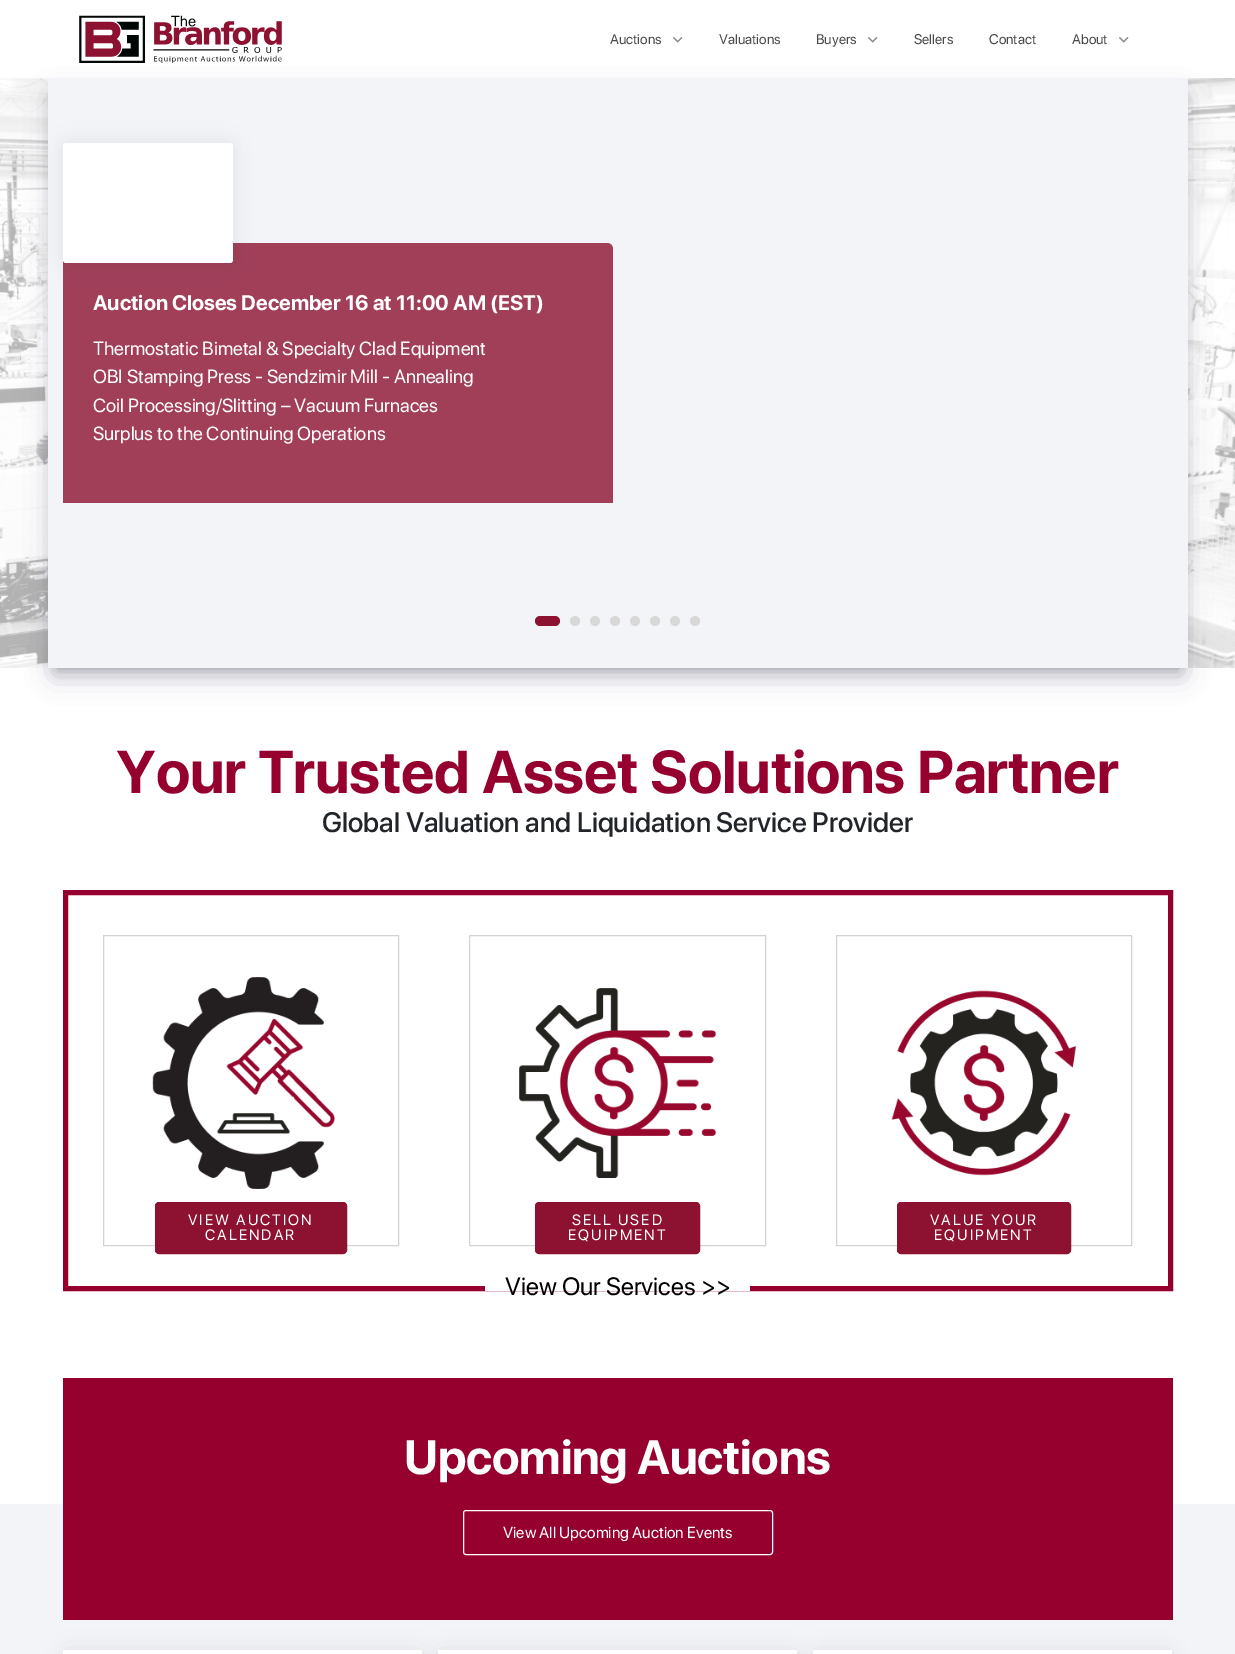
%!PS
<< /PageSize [1235 1654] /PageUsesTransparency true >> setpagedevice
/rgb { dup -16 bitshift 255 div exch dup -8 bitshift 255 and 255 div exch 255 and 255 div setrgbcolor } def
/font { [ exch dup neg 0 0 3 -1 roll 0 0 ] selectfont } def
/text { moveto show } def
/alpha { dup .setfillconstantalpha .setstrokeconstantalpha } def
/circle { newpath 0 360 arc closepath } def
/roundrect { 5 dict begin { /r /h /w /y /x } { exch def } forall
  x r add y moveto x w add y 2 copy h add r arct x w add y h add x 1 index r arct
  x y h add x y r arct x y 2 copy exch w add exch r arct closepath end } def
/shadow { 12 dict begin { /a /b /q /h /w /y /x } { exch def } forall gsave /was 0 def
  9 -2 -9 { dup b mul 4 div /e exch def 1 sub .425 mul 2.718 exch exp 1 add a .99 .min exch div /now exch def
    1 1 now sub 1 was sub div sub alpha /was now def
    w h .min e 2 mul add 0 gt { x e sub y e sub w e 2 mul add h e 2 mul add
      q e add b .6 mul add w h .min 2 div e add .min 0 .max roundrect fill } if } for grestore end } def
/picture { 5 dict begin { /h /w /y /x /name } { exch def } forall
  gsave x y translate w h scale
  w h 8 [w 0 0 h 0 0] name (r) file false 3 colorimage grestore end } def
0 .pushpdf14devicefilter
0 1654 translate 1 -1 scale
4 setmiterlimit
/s1 { /SFProDisplay-Regular 14 font 16#4A4A4A rgb } def
/s2 { /SFProDisplay-Bold 21 font 16#FFFFFF rgb } def
/s3 { /SFProDisplay-Regular 19 font 16#FFFFFF rgb } def
/s4 { /SFProDisplay-Medium 28 font 16#212529 rgb } def
/s5 { /SFProDisplay-Regular 25 font 16#000000 rgb } def
/s6 { /SFProDisplay-Regular 16 font 16#FFFFFF rgb } def
16#F2F4F7 rgb
0 0 1235 1654 rectfill
16#FFFFFF rgb
0 0 1235 78 rectfill
(pic1.raw) 79 15 203 48 picture
s1
(Auctions) 610 44 text
(pic2.raw) 673 37 10 6 picture
(Valuations) 719 44 text
(Buyers) 816 44 text
(pic2.raw) 868 37 10 6 picture
(Sellers) 914 44 text
(Contact) 989 44 text
(About) 1072 44 text
(pic2.raw) 1119 37 10 6 picture
(pic3.raw) 0 78 1235 590 picture
16#FFFFFF rgb
0 668 1235 836 rectfill
16#000000 rgb
56 94 1124 574 0 8 0.3 shadow
16#32325D rgb
53 96 1130 580 0 13.5 0.25 shadow
16#F2F4F7 rgb
48 78 1140 590 rectfill
16#A13F59 rgb
63 243 moveto 607 243 lineto 610.5 243 613 245.5 613 249 curveto 613 503 lineto 63 503 lineto closepath fill
16#000000 rgb
67 147 162 112 0 11.5 0.1 shadow
16#FFFFFF rgb
63 143 170 120 3 roundrect fill
s2
(Auction Closes December 16 at 11:00 AM \(EST\)) 93 310 text
s3
(Thermostatic Bimetal & Specialty Clad Equipment) 93 355 text
(OBI Stamping Press - Sendzimir Mill - Annealing) 93 383 text
(Coil Processing/Slitting – Vacuum Furnaces) 93 412 text
(Surplus to the Continuing Operations) 93 440 text
16#8D1231 rgb
535 616 25 10 5 roundrect fill
16#D8D8D8 rgb
575 621 5 circle fill
595 621 5 circle fill
615 621 5 circle fill
635 621 5 circle fill
655 621 5 circle fill
675 621 5 circle fill
695 621 5 circle fill
/SFProDisplay-Bold 60 font
16#96002E rgb
116 793 moveto -0.2 0 (Your Trusted Asset Solutions Partner) ashow
s4
(Global Valuation and Liquidation Service Provider) 322 832 text
16#96002E rgb
5 setlinewidth
65.5 892.5 1105 396 rectstroke
16#D3D3D3 rgb
1 setlinewidth
103.5 935.5 295 310 rectstroke
(pic4.raw) 152 977 183 212 picture
16#8D1231 rgb
155.5 1202.5 191 51 3.5 roundrect gsave fill grestore
stroke
/SFProDisplay-Regular 15 font
16#FFFFFF rgb
188 1225 moveto 2 0 (VIEW AUCTION) ashow
205 1240 moveto 2 0 (CALENDAR) ashow
16#D3D3D3 rgb
469.5 935.5 296 310 rectstroke
(pic5.raw) 519 988 198 190 picture
16#8D1231 rgb
535.5 1202.5 164 51 3.5 roundrect gsave fill grestore
stroke
16#FFFFFF rgb
572 1225 moveto 2 0 (SELL USED) ashow
568 1240 moveto 2 0 (EQUIPMENT) ashow
16#D3D3D3 rgb
836.5 935.5 295 310 rectstroke
(pic6.raw) 891 990 186 186 picture
16#8D1231 rgb
897.5 1202.5 173 51 3.5 roundrect gsave fill grestore
stroke
16#FFFFFF rgb
930 1225 moveto 2 0 (VALUE YOUR) ashow
934 1240 moveto 2 0 (EQUIPMENT) ashow
485 1286 265 5 rectfill
s5
(View Our Services >>) 505 1295 text
16#96002E rgb
63 1378 1110 242 rectfill
/SFProDisplay-Bold 48 font
16#FFFFFF rgb
404 1474 moveto -0.2 0 (Upcoming Auctions) ashow
463.5 1510.5 309 44 2.5 roundrect stroke
s6
(View All Upcoming Auction Events) 503 1538 text
16#000000 rgb
67 1654 351 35 0 11.5 0.1 shadow
16#FFFFFF rgb
63 1650 359 4 rectfill
16#000000 rgb
442 1654 351 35 0 11.5 0.1 shadow
16#FFFFFF rgb
438 1650 359 4 rectfill
16#000000 rgb
817 1654 351 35 0 11.5 0.1 shadow
16#FFFFFF rgb
813 1650 359 4 rectfill
.poppdf14devicefilter showpage
